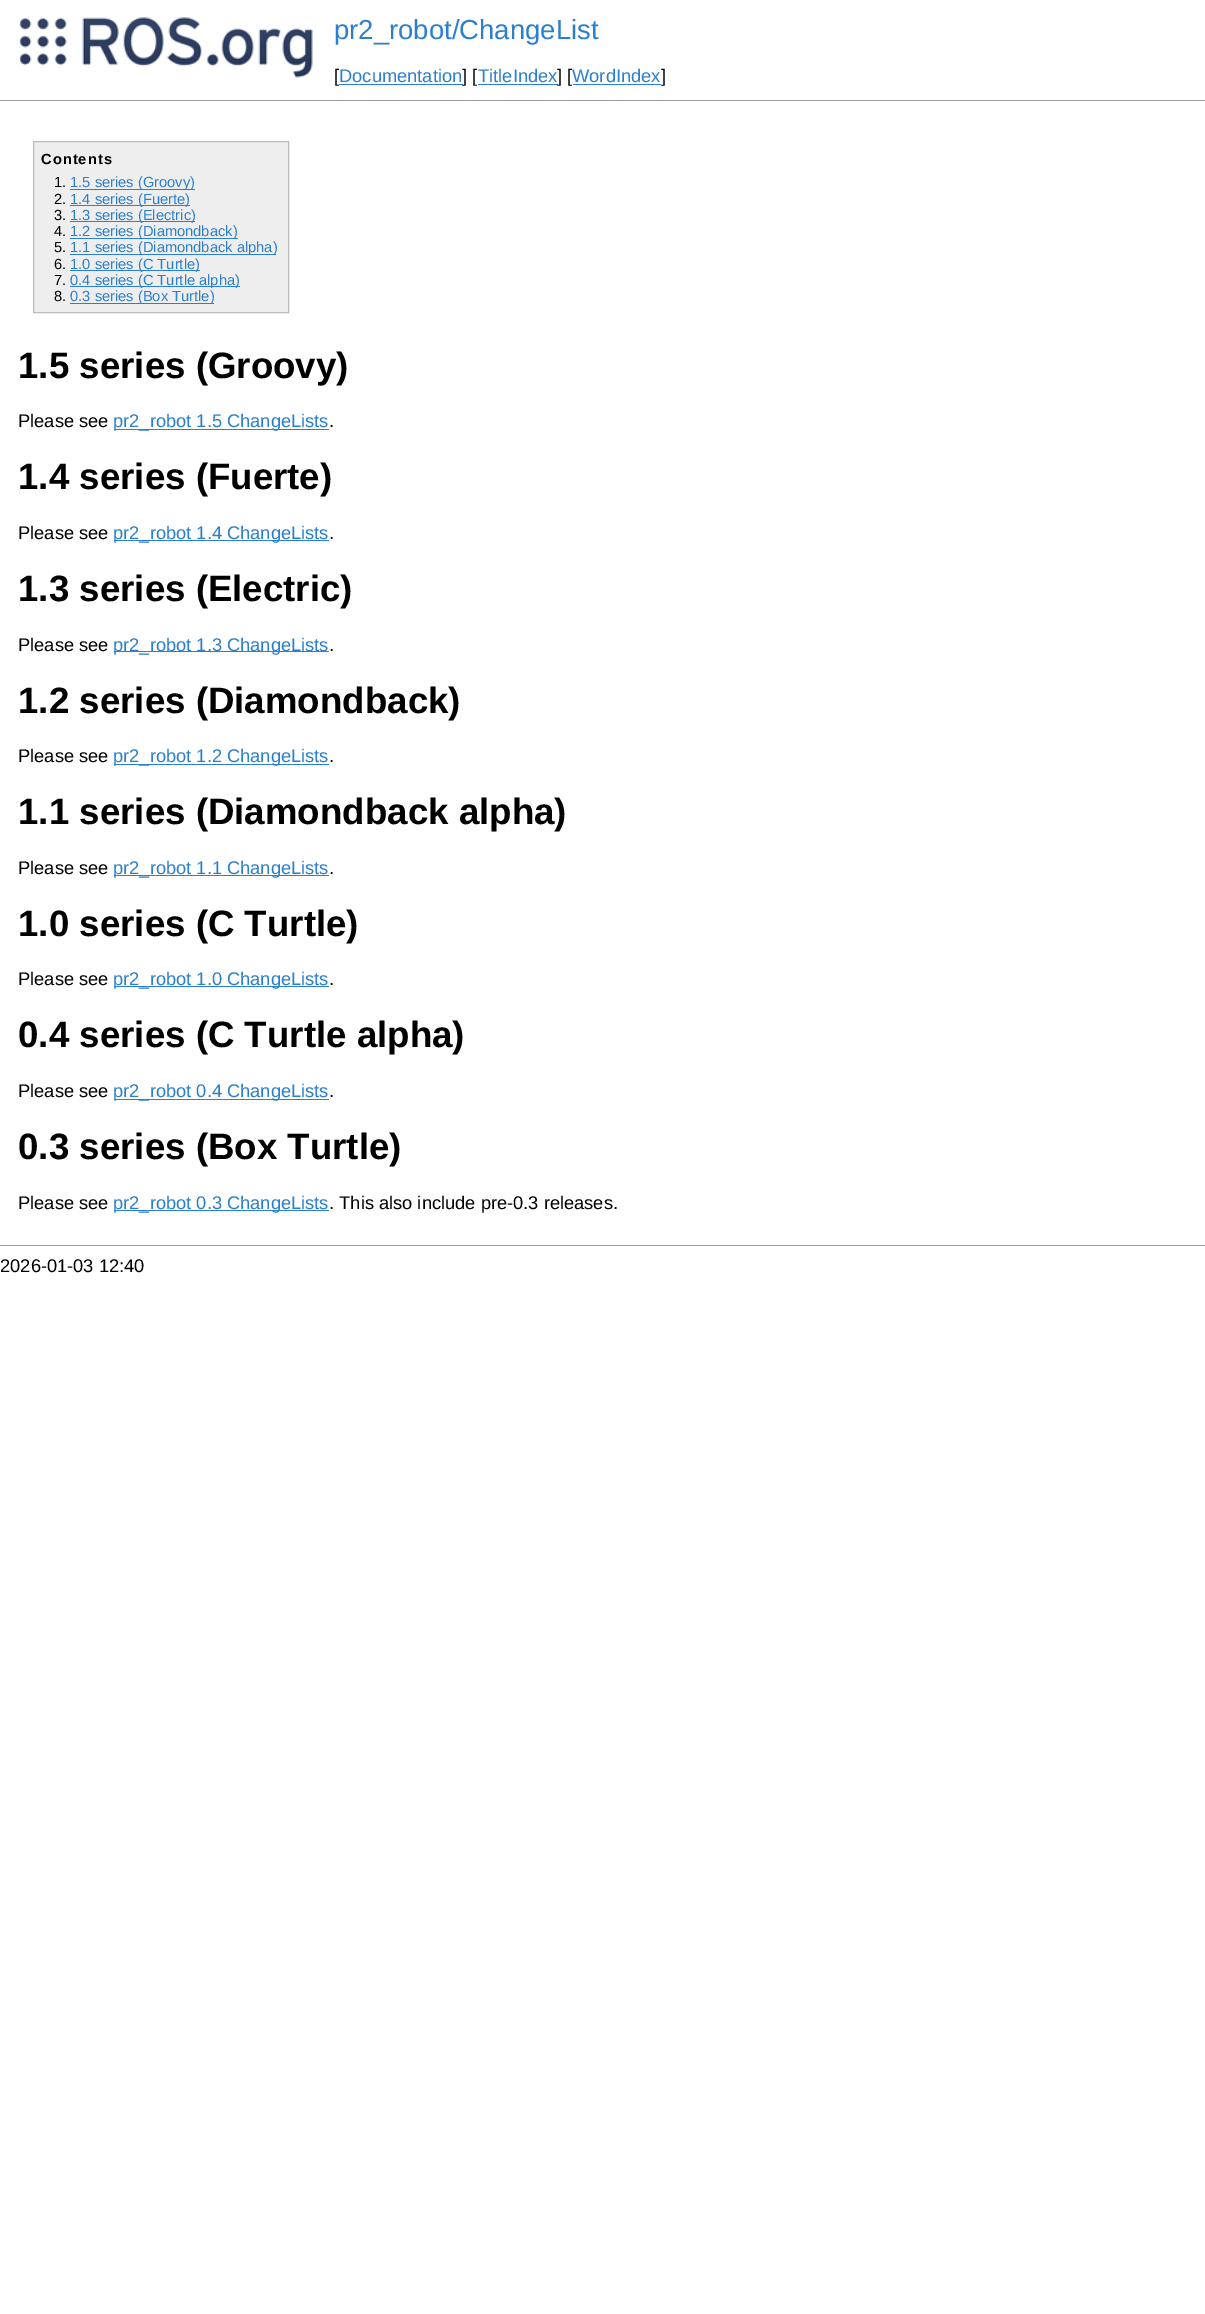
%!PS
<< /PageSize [1205 2314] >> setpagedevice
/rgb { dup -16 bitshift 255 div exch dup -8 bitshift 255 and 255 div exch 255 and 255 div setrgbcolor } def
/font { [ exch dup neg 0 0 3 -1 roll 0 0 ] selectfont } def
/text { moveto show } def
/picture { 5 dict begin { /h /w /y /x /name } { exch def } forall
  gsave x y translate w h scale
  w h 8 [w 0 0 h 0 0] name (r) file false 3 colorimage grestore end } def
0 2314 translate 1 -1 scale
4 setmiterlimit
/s1 { /LiberationSans-Regular 27.5 font 16#2B7FCF rgb } def
/s2 { /LiberationSans-Regular 18.3 font 16#000000 rgb } def
/s3 { /LiberationSans-Regular 18.3 font 16#2B7FCF rgb } def
/s4 { /LiberationSans-Regular 14.7 font 16#000000 rgb } def
/s5 { /LiberationSans-Regular 14.7 font 16#2B7FCF rgb } def
/s6 { /LiberationSans-Bold 36.7 font 16#000000 rgb } def
16#FFFFFF rgb
0 0 1205 2314 rectfill
(pic1.raw) 19 17 294 61 picture
s1
(pr2_robot/ChangeList) 334 39 text
s2
([) 334 82 text
s3
(Documentation) 339 82 text
339 84 124 1 rectfill
s2
(] [) 462 82 text
s3
(TitleIndex) 478 82 text
478 84 80 1 rectfill
s2
(] [) 557 82 text
s3
(WordIndex) 572 82 text
573 84 88 1 rectfill
s2
(]) 661 82 text
16#9C9C9C rgb
0 100 1205 1 rectfill
16#EEEEEE rgb
33.5 141.5 moveto 288.5 141.5 lineto 288.5 312.5 lineto 33.5 312.5 lineto closepath gsave fill grestore
16#BBBBBB rgb
stroke
/LiberationSans-Bold 14.7 font
16#000000 rgb
41 164 moveto 1 0 (Contents) ashow
s4
(1.) 54 187 text
16#2B7FCF rgb
70 189 125 1 rectfill
(1.5 series \(Groovy\)) 70 187 text
s4
(2.) 54 204 text
16#2B7FCF rgb
70 205 120 1 rectfill
(1.4 series \(Fuerte\)) 70 204 text
s4
(3.) 54 220 text
16#2B7FCF rgb
70 221 125 1 rectfill
(1.3 series \(Electric\)) 70 220 text
s4
(4.) 54 236 text
16#2B7FCF rgb
70 238 168 1 rectfill
(1.2 series \(Diamondback\)) 70 236 text
s4
(5.) 54 252 text
16#2B7FCF rgb
70 254 206 1 rectfill
(1.1 series \(Diamondback alpha\)) 70 252 text
s4
(6.) 54 269 text
16#2B7FCF rgb
70 270 130 1 rectfill
(1.0 series \(C Turtle\)) 70 269 text
s4
(7.) 54 285 text
16#2B7FCF rgb
70 286 170 1 rectfill
(0.4 series \(C Turtle alpha\)) 70 285 text
s4
(8.) 54 301 text
16#2B7FCF rgb
70 303 144 1 rectfill
(0.3 series \(Box Turtle\)) 70 301 text
s6
(1.5 series \(Groovy\)) 18 378 text
s2
(Please see) 18 427 text
16#2B7FCF rgb
114 429 215 1 rectfill
(pr2_robot 1.5 ChangeLists) 113 427 text
s2
(.) 329 427 text
s6
(1.4 series \(Fuerte\)) 18 489 text
s2
(Please see) 18 539 text
16#2B7FCF rgb
114 540 215 1 rectfill
(pr2_robot 1.4 ChangeLists) 113 539 text
s2
(.) 329 539 text
s6
(1.3 series \(Electric\)) 18 601 text
s2
(Please see) 18 651 text
16#2B7FCF rgb
114 651 215 1 rectfill
(pr2_robot 1.3 ChangeLists) 113 651 text
s2
(.) 329 651 text
s6
(1.2 series \(Diamondback\)) 18 713 text
s2
(Please see) 18 762 text
16#2B7FCF rgb
114 764 215 1 rectfill
(pr2_robot 1.2 ChangeLists) 113 762 text
s2
(.) 329 762 text
s6
(1.1 series \(Diamondback alpha\)) 18 824 text
s2
(Please see) 18 874 text
16#2B7FCF rgb
114 875 215 1 rectfill
(pr2_robot 1.1 ChangeLists) 113 874 text
s2
(.) 329 874 text
s6
(1.0 series \(C Turtle\)) 18 936 text
s2
(Please see) 18 985 text
16#2B7FCF rgb
114 986 215 1 rectfill
(pr2_robot 1.0 ChangeLists) 113 985 text
s2
(.) 329 985 text
s6
(0.4 series \(C Turtle alpha\)) 18 1047 text
s2
(Please see) 18 1097 text
16#2B7FCF rgb
114 1099 215 1 rectfill
(pr2_robot 0.4 ChangeLists) 113 1097 text
s2
(.) 329 1097 text
s6
(0.3 series \(Box Turtle\)) 18 1159 text
s2
(Please see) 18 1209 text
16#2B7FCF rgb
114 1210 215 1 rectfill
(pr2_robot 0.3 ChangeLists) 113 1209 text
s2
(. This also include pre-0.3 releases.) 329 1209 text
16#9C9C9C rgb
0 1245 1205 1 rectfill
s2
(2026-01-03 12:40) 0 1272 text
showpage
